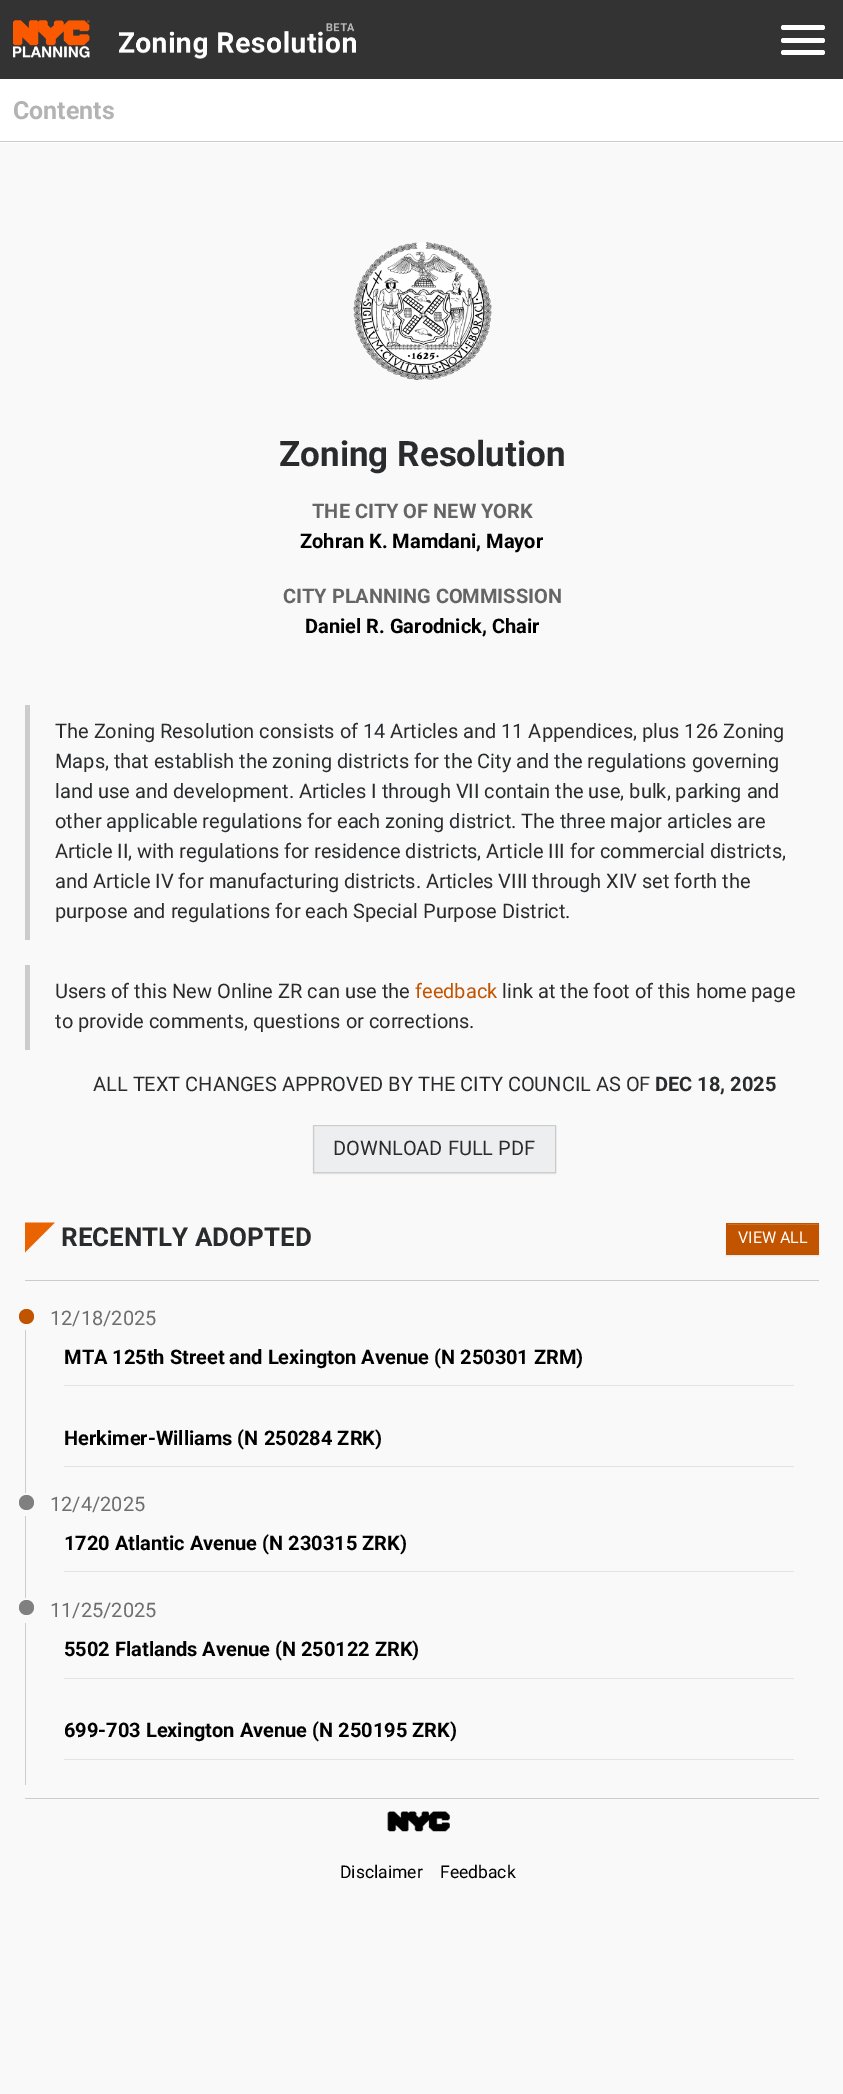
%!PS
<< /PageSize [843 2094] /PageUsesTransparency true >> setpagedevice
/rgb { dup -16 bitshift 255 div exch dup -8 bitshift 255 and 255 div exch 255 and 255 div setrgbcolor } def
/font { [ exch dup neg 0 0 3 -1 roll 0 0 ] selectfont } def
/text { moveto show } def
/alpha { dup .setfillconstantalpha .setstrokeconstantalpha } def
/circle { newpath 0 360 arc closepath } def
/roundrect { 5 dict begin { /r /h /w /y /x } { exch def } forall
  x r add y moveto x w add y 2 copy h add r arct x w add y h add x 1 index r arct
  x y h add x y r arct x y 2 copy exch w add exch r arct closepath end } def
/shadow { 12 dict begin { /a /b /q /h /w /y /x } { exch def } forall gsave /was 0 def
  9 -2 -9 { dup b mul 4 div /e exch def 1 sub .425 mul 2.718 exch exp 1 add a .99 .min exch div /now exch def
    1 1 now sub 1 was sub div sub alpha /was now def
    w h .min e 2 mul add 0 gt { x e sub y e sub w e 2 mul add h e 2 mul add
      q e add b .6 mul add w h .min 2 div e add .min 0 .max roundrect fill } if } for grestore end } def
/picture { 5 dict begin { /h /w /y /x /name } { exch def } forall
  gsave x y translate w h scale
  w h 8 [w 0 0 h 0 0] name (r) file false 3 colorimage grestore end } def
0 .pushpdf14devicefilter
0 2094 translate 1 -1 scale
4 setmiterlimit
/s1 { /Roboto-Bold 25 font 16#B3B3B3 rgb } def
/s2 { /Roboto-Bold 35 font 16#292B2C rgb } def
/s3 { /Roboto-Bold 20 font 16#656565 rgb } def
/s4 { /Roboto-Bold 20 font 16#000000 rgb } def
/s5 { /Roboto-Regular 20 font 16#292B2C rgb } def
/s6 { /Roboto-Regular 20 font 16#C25400 rgb } def
/s7 { /Roboto-Bold 20 font 16#292B2C rgb } def
/s8 { /Roboto-Bold 26 font 16#292B2C rgb } def
/s9 { /Roboto-Regular 16 font 16#FFFFFF rgb } def
/s10 { /Roboto-Regular 20 font 16#6E6E6E rgb } def
/s11 { /Roboto-Regular 17.5 font 16#000000 rgb } def
16#F9F9F9 rgb
0 0 843 2094 rectfill
16#333333 rgb
0 0 843 79 rectfill
(pic1.raw) 13 20 343 39 picture
16#FFFFFF rgb
781 38 44 5 2.5 roundrect fill
781 25 44 5 2.5 roundrect fill
781 50 44 5 2.5 roundrect fill
0 79 843 64 rectfill
16#CCCCCC rgb
0 141 843 1 rectfill
s1
(Contents) 13 119 text
(pic2.raw) 353 242 139 138 picture
s2
(Zoning Resolution) 279 466 text
s3
(THE CITY OF NEW YORK) 312 518 text
s4
(Zohran K. Mamdani, Mayor) 300 548 text
s3
(CITY PLANNING COMMISSION) 283 603 text
s4
(Daniel R. Garodnick, Chair) 305 633 text
16#CCCCCC rgb
25 705 5 235 rectfill
s5
(The Zoning Resolution consists of 14 Articles and 11 Appendices, plus 126 Zoning) 55 738 text
(Maps, that establish the zoning districts for the City and the regulations governing) 55 768 text
(land use and development. Articles I through VII contain the use, bulk, parking and) 55 798 text
(other applicable regulations for each zoning district. The three major articles are) 55 828 text
(Article II, with regulations for residence districts, Article III for commercial districts,) 55 858 text
(and Article IV for manufacturing districts. Articles VIII through XIV set forth the) 55 888 text
(purpose and regulations for each Special Purpose District.) 55 918 text
16#CCCCCC rgb
25 965 5 85 rectfill
s5
(Users of this New Online ZR can use the) 55 998 text
s6
(feedback) 415 998 text
s5
(link at the foot of this home page) 502 998 text
(to provide comments, questions or corrections.) 55 1028 text
(ALL TEXT CHANGES APPROVED BY THE CITY COUNCIL AS OF) 93 1091 text
s7
(DEC 18, 2025) 655 1091 text
16#000000 rgb
313 1126 243 48 0 0.5 0.07 shadow
16#ECEEEF rgb
314 1127 241 45 rectfill
16#EFF1F1 rgb
314 1126 241 1 rectfill
16#CCCCCC rgb
313.5 1125.5 242 47 rectstroke
s5
(DOWNLOAD FULL PDF) 333 1155 text
16#CCCCCC rgb
25 1280 794 1 rectfill
(pic3.raw) 25 1222 30 31 picture
s8
(RECENTLY ADOPTED) 61 1246 text
16#000000 rgb
726 1224 93 32 0 0.5 0.07 shadow
16#C25400 rgb
726 1223 93 32 rectfill
16#CB6E26 rgb
728 1224 90 1 rectfill
s9
(VIEW ALL) 738 1243 text
16#C25400 rgb
26.5 1316.5 7.5 circle fill
s10
(12/18/2025) 50 1325 text
16#CCCCCC rgb
25 1330 1 163 rectfill
16#E3E3E3 rgb
64 1385 730 1 rectfill
s4
(MTA 125th Street and Lexington Avenue \(N 250301 ZRM\)) 64 1364 text
16#E3E3E3 rgb
64 1466 730 1 rectfill
s4
(Herkimer-Williams \(N 250284 ZRK\)) 64 1445 text
16#808080 rgb
26.5 1502.5 7.5 circle fill
s10
(12/4/2025) 50 1511 text
16#CCCCCC rgb
25 1516 1 82 rectfill
16#E3E3E3 rgb
64 1571 730 1 rectfill
s4
(1720 Atlantic Avenue \(N 230315 ZRK\)) 64 1550 text
16#808080 rgb
26.5 1607.5 7.5 circle fill
s10
(11/25/2025) 50 1617 text
16#CCCCCC rgb
25 1623 1 162 rectfill
16#E3E3E3 rgb
64 1678 730 1 rectfill
s4
(5502 Flatlands Avenue \(N 250122 ZRK\)) 64 1656 text
16#E3E3E3 rgb
64 1759 730 1 rectfill
s4
(699-703 Lexington Avenue \(N 250195 ZRK\)) 64 1737 text
16#CCCCCC rgb
25 1798 794 1 rectfill
(pic4.raw) 387 1811 63 21 picture
s11
(Disclaimer) 340 1878 text
(Feedback) 440 1878 text
.poppdf14devicefilter showpage
